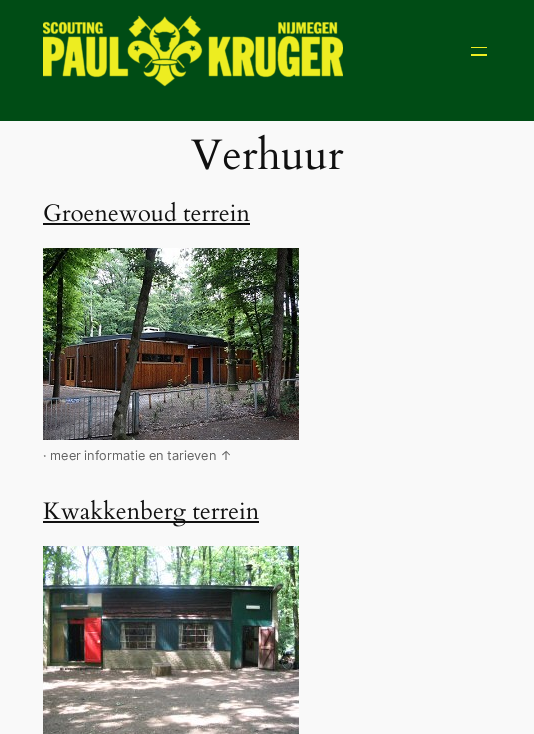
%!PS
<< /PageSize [534 734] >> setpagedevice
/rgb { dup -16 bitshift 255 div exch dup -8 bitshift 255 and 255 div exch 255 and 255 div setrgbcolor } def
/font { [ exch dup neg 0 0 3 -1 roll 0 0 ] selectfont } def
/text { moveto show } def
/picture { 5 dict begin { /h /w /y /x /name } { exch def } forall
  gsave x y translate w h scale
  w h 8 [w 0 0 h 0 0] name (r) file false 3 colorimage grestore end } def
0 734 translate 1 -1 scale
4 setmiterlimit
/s1 { /Inter-Regular 12.75 font 16#636363 rgb } def
16#004C15 rgb
0 0 534 734 rectfill
(pic1.raw) 43 15 300 72 picture
16#EEEE22 rgb
471 47 16 1 rectfill
471 54 16 2 rectfill
16#F9F9F9 rgb
0 121 534 613 rectfill
(pic2.raw) 191 134 153 36 picture
(pic3.raw) 44 201 206 21 picture
16#111111 rgb
43 223 207 2 rectfill
(pic4.raw) 43 248 256 192 picture
s1
(· meer informatie en tarieven ↑) 43 460 text
16#111111 rgb
43 521 216 2 rectfill
(pic5.raw) 43 499 216 28 picture
(pic6.raw) 43 546 256 188 picture
showpage
